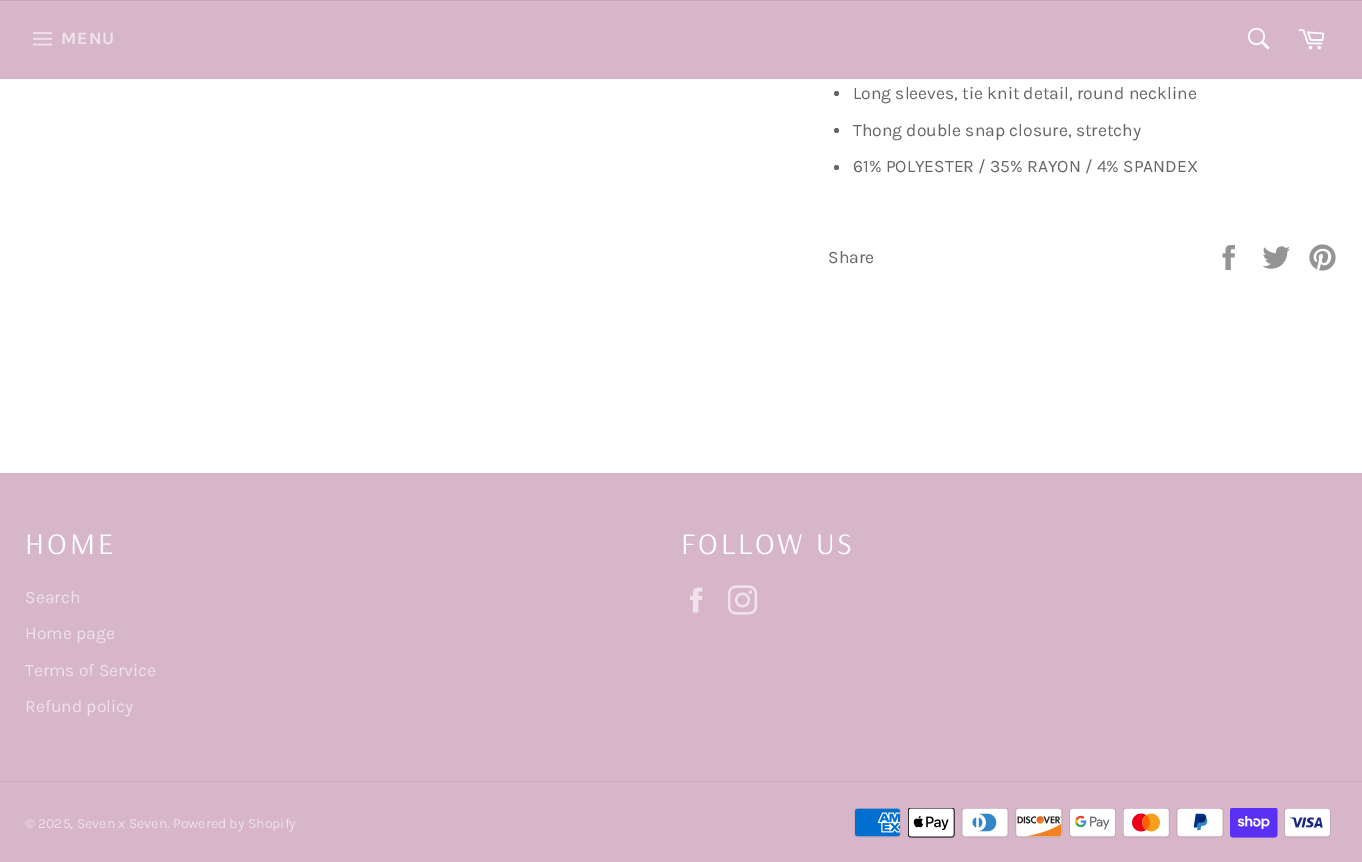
%!PS
<< /PageSize [1362 862] >> setpagedevice
/rgb { dup -16 bitshift 255 div exch dup -8 bitshift 255 and 255 div exch 255 and 255 div setrgbcolor } def
/font { [ exch dup neg 0 0 3 -1 roll 0 0 ] selectfont } def
/text { moveto show } def
/circle { newpath 0 360 arc closepath } def
/picture { 5 dict begin { /h /w /y /x /name } { exch def } forall
  gsave x y translate w h scale
  w h 8 [w 0 0 h 0 0] name (r) file false 3 colorimage grestore end } def
0 862 translate 1 -1 scale
4 setmiterlimit
/s1 { /Karla-Regular 17.5 font 16#666666 rgb } def
/s2 { /Karla-Regular 17.5 font 16#EFE2E9 rgb } def
/s3 { /Karla-Regular 14 font 16#EFE2E9 rgb } def
16#FFFFFF rgb
0 0 1362 862 rectfill
16#D6B6C8 rgb
0 1 1362 78 rectfill
16#CDA6BC rgb
0 0 1362 1 rectfill
(pic1.raw) 33 32 19 14 picture
/Karla-Bold 17.5 font
16#EFE2E9 rgb
61 44 moveto 1 0 (MENU) ashow
(pic2.raw) 1247 27 23 23 picture
(pic3.raw) 1298 29 27 21 picture
16#666666 rgb
836.5 93.5 2.5 circle fill
s1
(Long sleeves, tie knit detail, round neckline) 853 99 text
836.5 130.5 2.5 circle fill
(Thong double snap closure, stretchy) 853 136 text
836.5 167.5 2.5 circle fill
(61% POLYESTER / 35% RAYON / 4% SPANDEX) 853 172 text
(Share) 828 263 text
(pic4.raw) 1222 245 13 25 picture
(pic5.raw) 1262 246 28 23 picture
(pic6.raw) 1309 244 27 27 picture
16#D6B6C8 rgb
0 473 1362 389 rectfill
/Arsenal-Regular 30 font
16#FFFFFF rgb
25 554 moveto 3 0 (HOME) ashow
s2
(Search) 25 603 text
(Home page) 25 639 text
(Terms of Service) 25 676 text
(Refund policy) 25 712 text
/Arsenal-Regular 30 font
16#FFFFFF rgb
681 554 moveto 3 0 (FOLLOW US) ashow
(pic7.raw) 690 587 13 26 picture
(pic8.raw) 728 585 30 30 picture
16#CDA6BC rgb
0 781 1362 1 rectfill
s3
(© 2025, Seven x Seven. Powered by Shopify) 25 828 text
(pic9.raw) 854 808 47 30 picture
(pic10.raw) 908 808 47 30 picture
(pic11.raw) 961 808 48 30 picture
(pic12.raw) 1015 808 48 30 picture
(pic13.raw) 1069 808 47 30 picture
(pic14.raw) 1123 808 47 30 picture
(pic15.raw) 1176 808 48 30 picture
(pic16.raw) 1230 808 48 30 picture
(pic17.raw) 1284 808 47 30 picture
showpage
